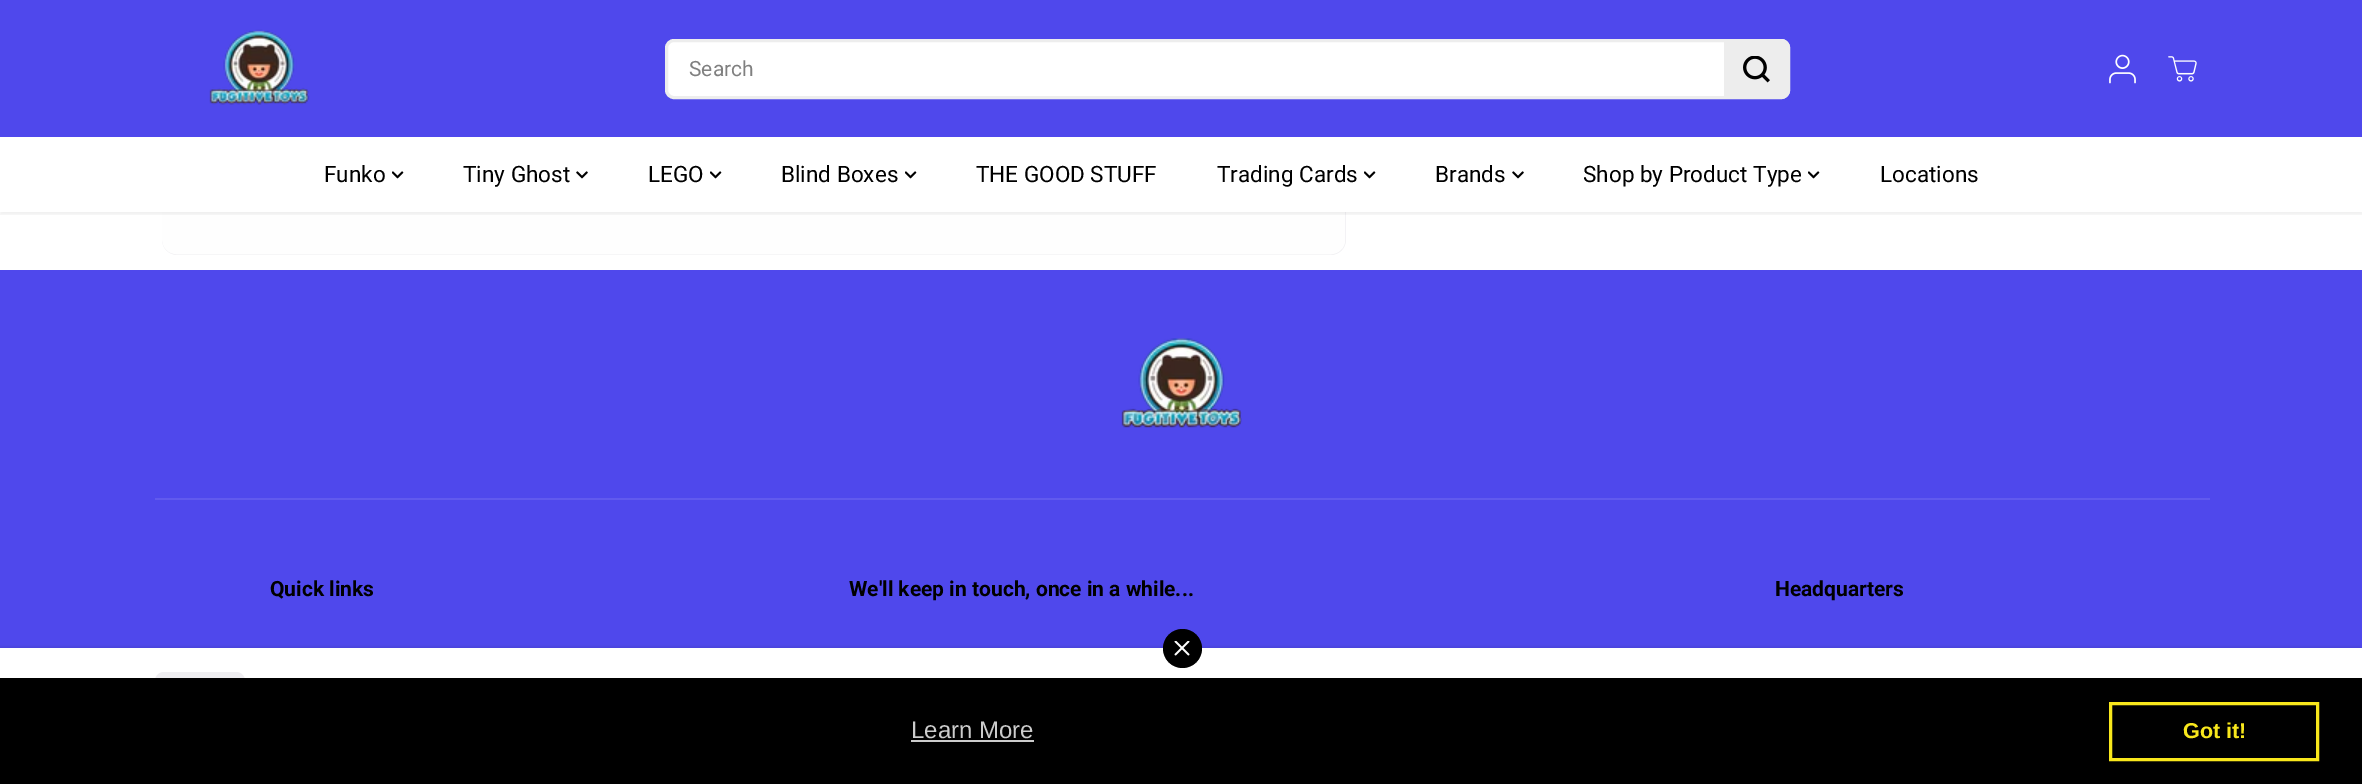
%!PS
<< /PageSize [2362 784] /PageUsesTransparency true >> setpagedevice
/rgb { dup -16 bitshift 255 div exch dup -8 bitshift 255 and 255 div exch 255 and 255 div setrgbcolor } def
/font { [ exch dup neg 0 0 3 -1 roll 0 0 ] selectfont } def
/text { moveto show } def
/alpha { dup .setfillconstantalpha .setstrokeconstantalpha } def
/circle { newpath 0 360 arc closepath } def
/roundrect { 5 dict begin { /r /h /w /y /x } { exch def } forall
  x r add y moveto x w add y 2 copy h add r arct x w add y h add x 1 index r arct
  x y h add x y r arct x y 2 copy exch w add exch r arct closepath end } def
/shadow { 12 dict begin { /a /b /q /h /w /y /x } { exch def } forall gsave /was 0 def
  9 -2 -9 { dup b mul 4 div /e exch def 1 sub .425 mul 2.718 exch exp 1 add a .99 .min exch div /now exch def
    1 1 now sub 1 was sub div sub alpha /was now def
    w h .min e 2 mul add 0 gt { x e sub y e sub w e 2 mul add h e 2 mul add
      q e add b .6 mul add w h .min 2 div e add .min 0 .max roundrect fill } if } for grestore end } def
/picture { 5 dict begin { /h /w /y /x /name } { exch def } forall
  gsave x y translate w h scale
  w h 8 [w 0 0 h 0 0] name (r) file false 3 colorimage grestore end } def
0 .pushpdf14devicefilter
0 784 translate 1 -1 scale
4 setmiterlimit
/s1 { /Roboto-Regular 21 font 16#808080 rgb } def
/s2 { /Roboto-Regular 22.5 font 16#000000 rgb } def
/s3 { /Roboto-Bold 21 font 16#000000 rgb } def
/s4 { /LiberationSans-Regular 24 font 16#CCCCCC rgb } def
/s5 { /LiberationSans-Bold 21.5 font 16#F8E71C rgb } def
16#FFFFFF rgb
0 0 2362 784 rectfill
16#EFEEF1 rgb
162 -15 1184 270 15 roundrect fill
(pic1.raw) 162 212 1184 43 picture
16#4F48EC rgb
0 270 2362 378 rectfill
16#000000 rgb
-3 647 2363 136 0 1.5 0.09 shadow
16#FFFFFF rgb
0 648 2362 30 rectfill
16#000000 rgb
1182.5 648.5 19.5 circle fill
(pic2.raw) 1174 641 16 15 picture
16#EFEEF1 rgb
155 672 90 89 9 roundrect fill
16#4F48EC rgb
0 0 2362 137 rectfill
gsave
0 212 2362 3 rectclip
16#000000 rgb
0 3 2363 212 0 1.5 0.05 shadow
grestore
(pic3.raw) 209 29 101 76 picture
16#FFFFFF rgb
666.5 40.5 1122 57 7.5 roundrect gsave fill grestore
16#EDEDED rgb
3 setlinewidth
stroke
s1
(Search) 689 76 text
16#EDEDED rgb
1724 39 moveto 1781 39 lineto 1786 39 1790 43 1790 48 curveto 1790 90 lineto 1790 95 1786 99 1781 99 curveto 1724 99 lineto closepath fill
(pic4.raw) 1743 56 27 27 picture
(pic5.raw) 2109 54 27 30 picture
(pic6.raw) 2168 56 29 26 picture
16#FFFFFF rgb
0 137 2362 75 rectfill
s2
(Funko) 324 182 text
(pic7.raw) 392 171 12 8 picture
(Tiny Ghost) 463 182 text
(pic8.raw) 576 171 12 8 picture
(LEGO) 648 182 text
(pic7.raw) 710 171 12 8 picture
(Blind Boxes) 781 182 text
(pic7.raw) 905 171 12 8 picture
(THE GOOD STUFF) 976 182 text
(Trading Cards) 1217 182 text
(pic7.raw) 1364 171 12 8 picture
(Brands) 1435 182 text
(pic8.raw) 1512 171 12 8 picture
(Shop by Product Type) 1583 182 text
(pic7.raw) 1808 171 12 8 picture
(Locations) 1880 182 text
16#615AEE rgb
155 498 2055 2 rectfill
(pic9.raw) 1121 338 121 90 picture
s3
(Quick links) 270 596 text
(We'll keep in touch, once in a while...) 849 596 text
(Headquarters) 1775 596 text
0 678 2362 106 rectfill
s4
(Learn More) 911 738 text
911 740 123 2 rectfill
16#F8E71C rgb
2110.5 703.5 207 56 rectstroke
s5
(Got it!) 2183 738 text
.poppdf14devicefilter showpage
